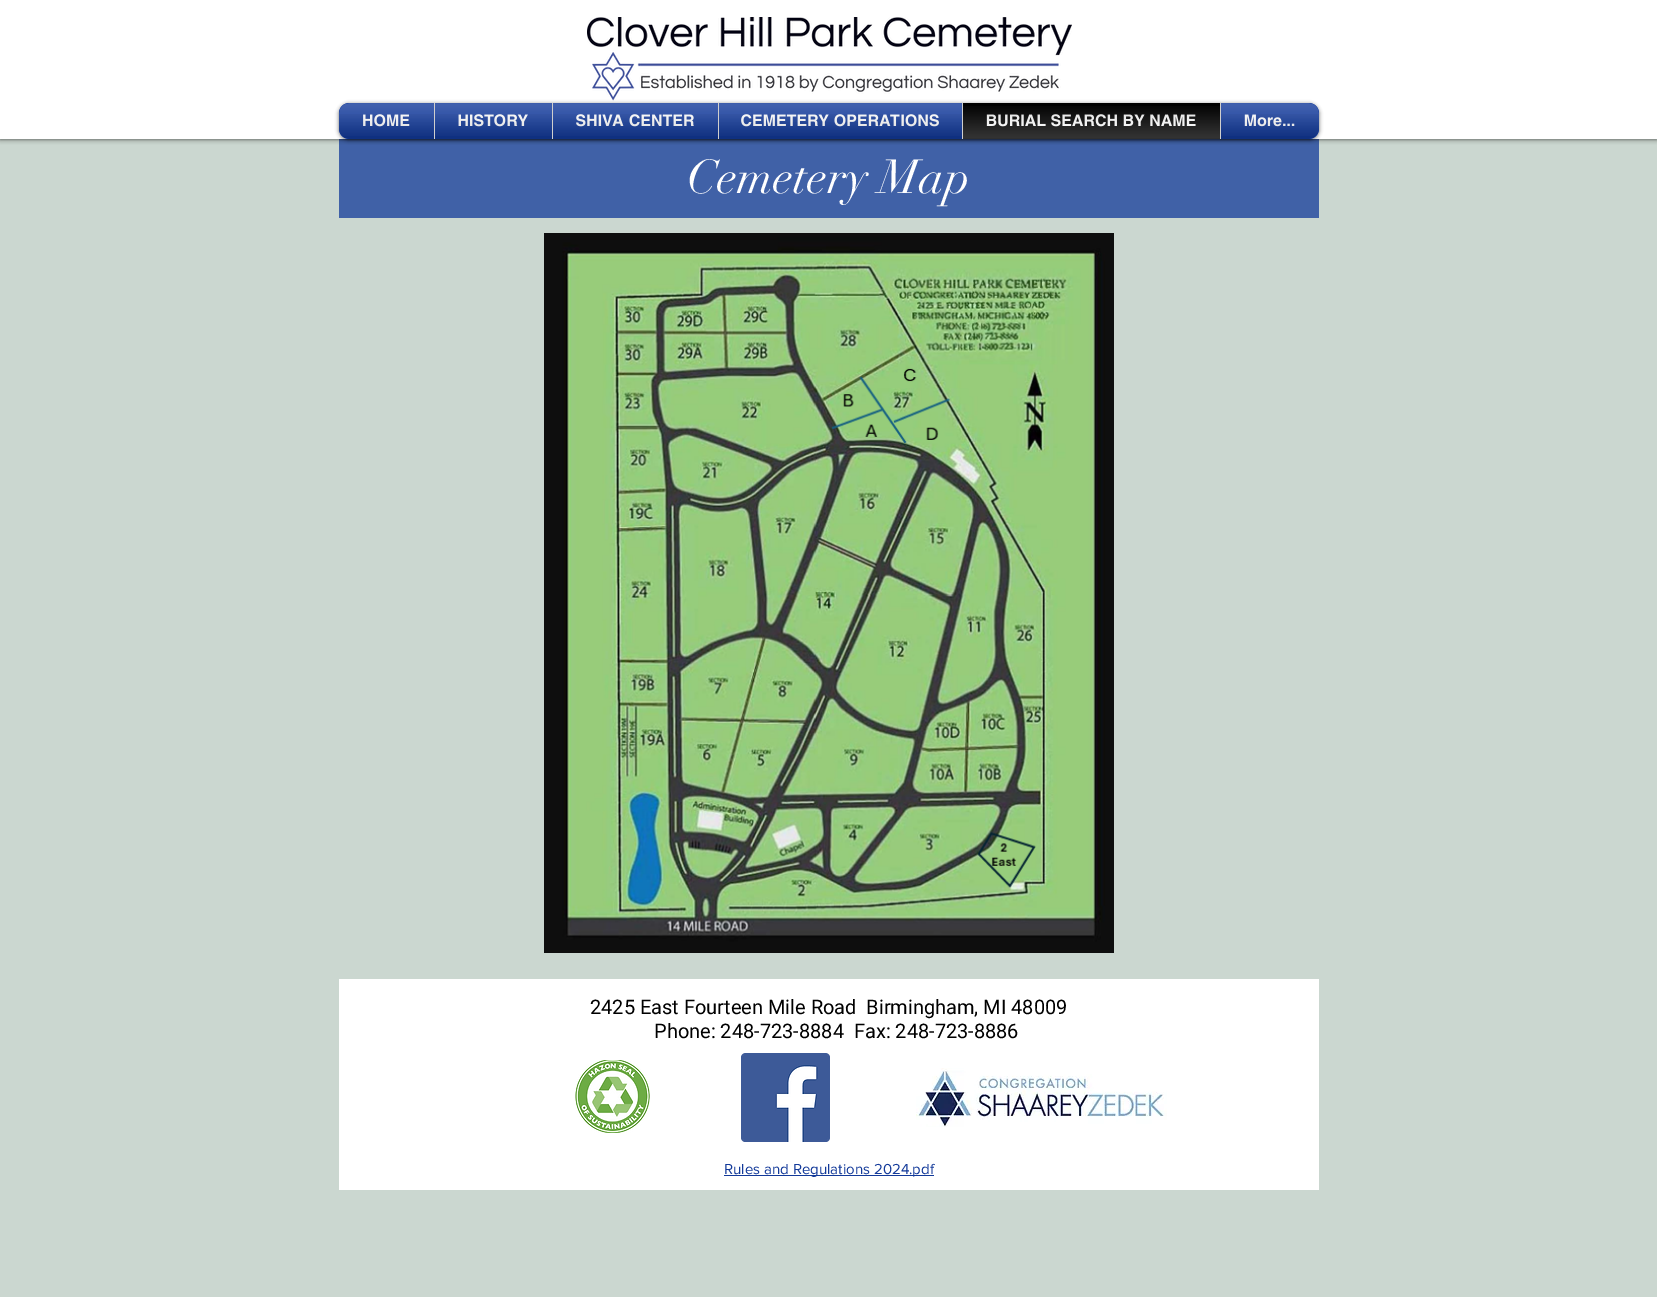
%!PS
<< /PageSize [1657 1297] /PageUsesTransparency true >> setpagedevice
/rgb { dup -16 bitshift 255 div exch dup -8 bitshift 255 and 255 div exch 255 and 255 div setrgbcolor } def
/font { [ exch dup neg 0 0 3 -1 roll 0 0 ] selectfont } def
/text { moveto show } def
/alpha { dup .setfillconstantalpha .setstrokeconstantalpha } def
/roundrect { 5 dict begin { /r /h /w /y /x } { exch def } forall
  x r add y moveto x w add y 2 copy h add r arct x w add y h add x 1 index r arct
  x y h add x y r arct x y 2 copy exch w add exch r arct closepath end } def
/shadow { 12 dict begin { /a /b /q /h /w /y /x } { exch def } forall gsave /was 0 def
  9 -2 -9 { dup b mul 4 div /e exch def 1 sub .425 mul 2.718 exch exp 1 add a .99 .min exch div /now exch def
    1 1 now sub 1 was sub div sub alpha /was now def
    w h .min e 2 mul add 0 gt { x e sub y e sub w e 2 mul add h e 2 mul add
      q e add b .6 mul add w h .min 2 div e add .min 0 .max roundrect fill } if } for grestore end } def
/picture { 5 dict begin { /h /w /y /x /name } { exch def } forall
  gsave x y translate w h scale
  w h 8 [w 0 0 h 0 0] name (r) file false 3 colorimage grestore end } def
0 .pushpdf14devicefilter
0 1297 translate 1 -1 scale
4 setmiterlimit
/s1 { /helvetica-Bold 16 font 16#FFFFFF rgb } def
/s2 { /didot-Regular 47 font 16#FFFFFF rgb } def
/s3 { /Roboto-Regular 20 font 16#000000 rgb } def
/s4 { /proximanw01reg-Regular 15 font 16#123999 rgb } def
16#CBD7D0 rgb
0 0 1657 1297 rectfill
16#4061A7 rgb
339 139 980 79 rectfill
16#000000 rgb
0 0 1657 139 0 2.5 0.7 shadow
16#FFFFFF rgb
0 0 1657 139 rectfill
(pic1.raw) 587 17 485 84 picture
16#000000 rgb
339 104 980 36 10 2 0.6 shadow
(pic2.raw) 339 103 980 31 picture
(pic3.raw) 339 129 980 10 picture
16#123999 rgb
349 103 moveto 434 103 lineto 434 139 lineto 349 139 lineto 343.5 139 339 134.5 339 129 curveto 339 113 lineto 339 107.5 343.5 103 349 103 curveto closepath fill
s1
(HOME) 362 126 text
(pic4.raw) 339 103 95 33 picture
(pic5.raw) 339 114 95 25 picture
16#123999 rgb
435 103 117 36 rectfill
16#D0CFCD rgb
434 103 1 36 rectfill
s1
(HISTORY) 457 126 text
(pic6.raw) 435 103 117 33 picture
(pic7.raw) 435 114 117 25 picture
16#123999 rgb
553 103 165 36 rectfill
16#D0CFCD rgb
552 103 1 36 rectfill
s1
(SHIVA CENTER) 575 126 text
(pic8.raw) 553 103 165 33 picture
(pic9.raw) 553 114 165 25 picture
16#123999 rgb
719 103 243 36 rectfill
16#D0CFCD rgb
718 103 1 36 rectfill
s1
(CEMETERY OPERATIONS) 740 126 text
(pic10.raw) 719 103 243 33 picture
(pic11.raw) 719 114 243 25 picture
16#000000 rgb
963 103 257 36 rectfill
16#D0CFCD rgb
962 103 1 36 rectfill
s1
(BURIAL SEARCH BY NAME) 986 126 text
(pic12.raw) 987 114 209 12 picture
(pic13.raw) 963 106 257 33 picture
16#123999 rgb
1220 103 moveto 1309 103 lineto 1314.5 103 1319 107.5 1319 113 curveto 1319 129 lineto 1319 134.5 1314.5 139 1309 139 curveto 1220 139 lineto closepath fill
16#D0CFCD rgb
1220 103 1 36 rectfill
s1
(More...) 1244 126 text
(pic14.raw) 1221 103 98 33 picture
(pic15.raw) 1221 114 98 25 picture
s2
(Cemetery Map) 687 193 text
(pic16.raw) 544 233 570 720 picture
339 979 980 211 rectfill
s3
(2425 East Fourteen Mile Road  Birmingham, MI 48009) 590 1014 text
(Phone: 248-723-8884  Fax: 248-723-8886) 654 1038 text
(pic17.raw) 575 1060 75 73 picture
(pic18.raw) 741 1053 89 89 picture
(pic19.raw) 916 1068 251 59 picture
16#123999 rgb
724 1175 210 1 rectfill
s4
(Rules and Regulations 2024.pdf) 724 1174 text
.poppdf14devicefilter showpage
